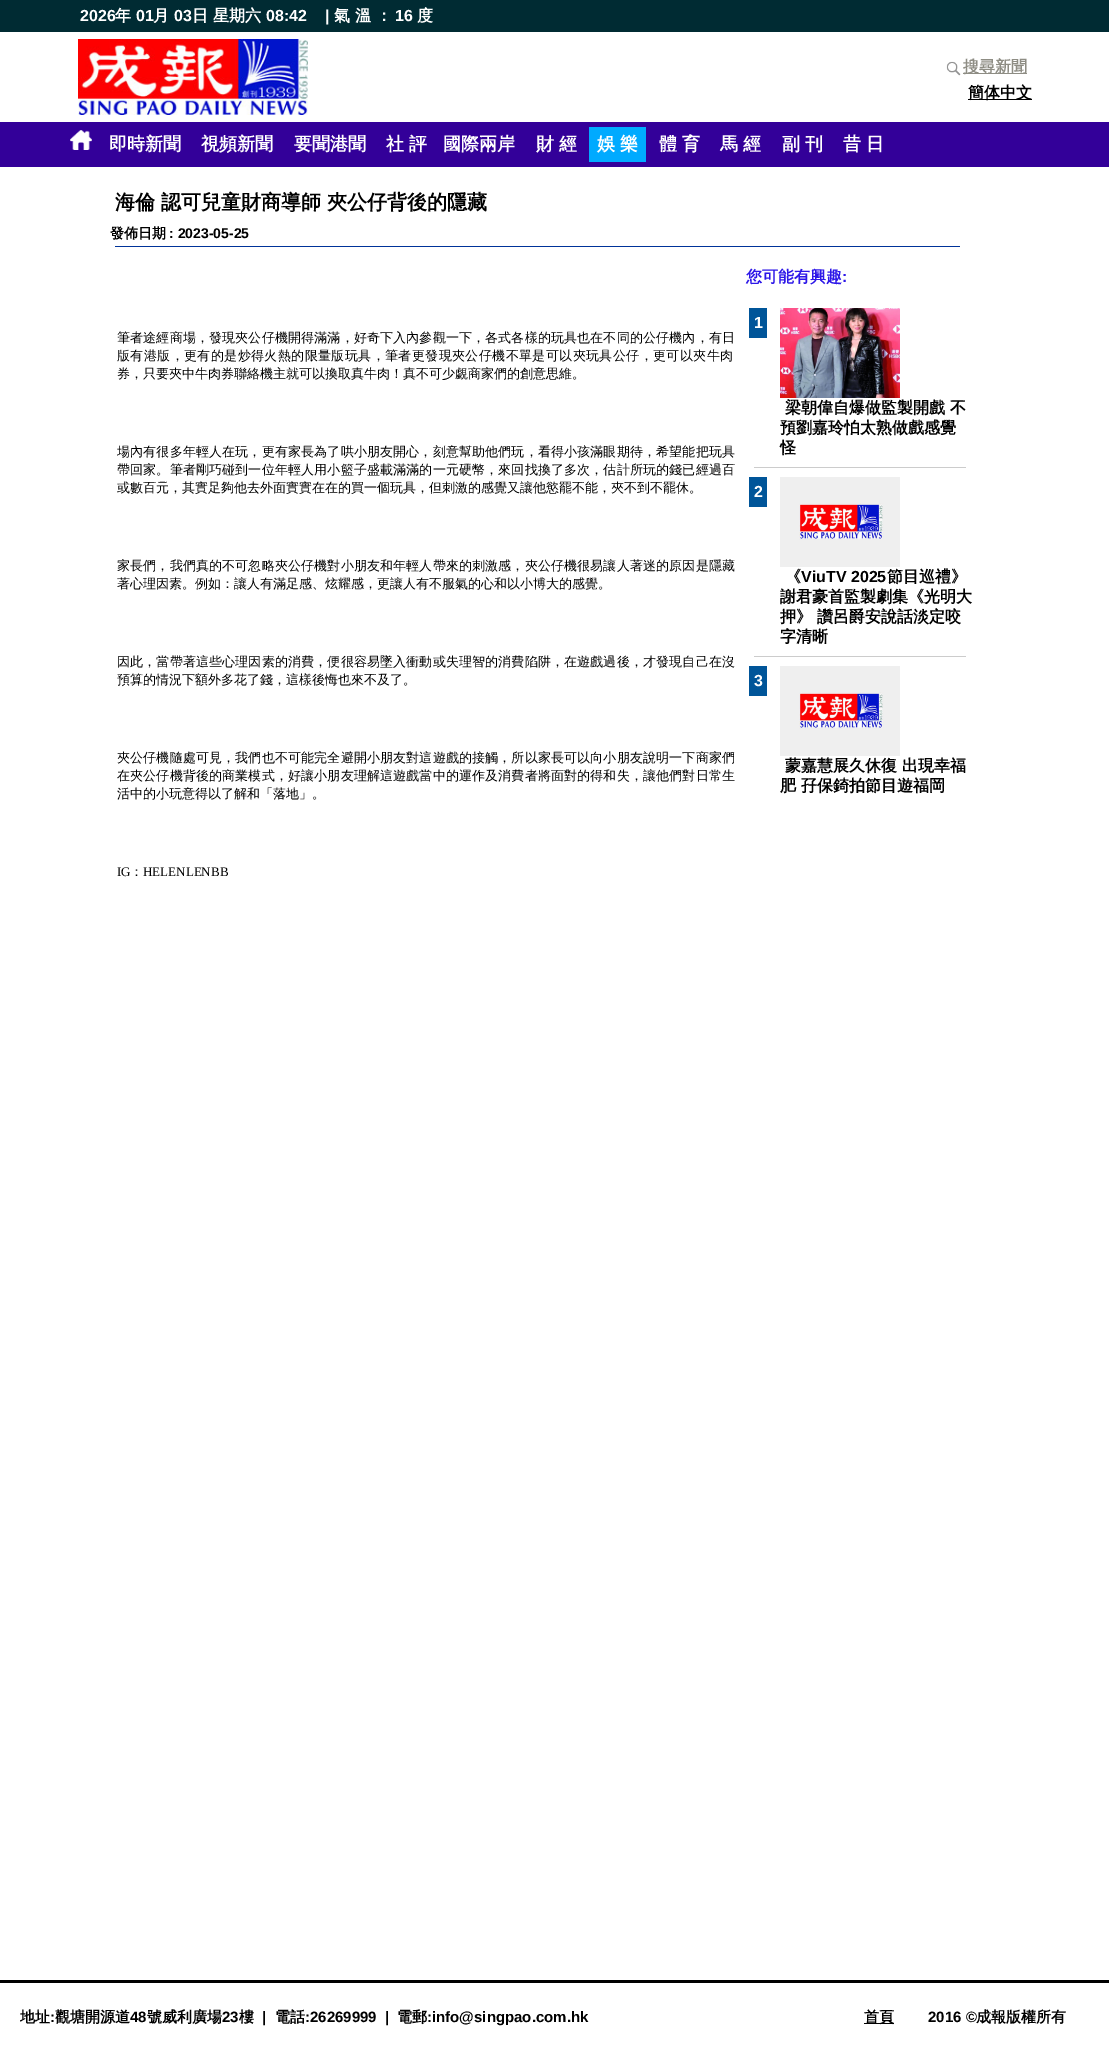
%!PS
<< /PageSize [1109 2051] >> setpagedevice
/rgb { dup -16 bitshift 255 div exch dup -8 bitshift 255 and 255 div exch 255 and 255 div setrgbcolor } def
/font { [ exch dup neg 0 0 3 -1 roll 0 0 ] selectfont } def
/text { moveto show } def
/picture { 5 dict begin { /h /w /y /x /name } { exch def } forall
  gsave x y translate w h scale
  w h 8 [w 0 0 h 0 0] name (r) file false 3 colorimage grestore end } def
0 2051 translate 1 -1 scale
4 setmiterlimit
/s1 { /LiberationSans-Bold 16 font 16#FFFFFF rgb } def
/s2 { /WenQuanYiZenHei-Bold 16 font 16#FFFFFF rgb } def
/s3 { /WenQuanYiZenHei-Bold 16 font 16#8E8D84 rgb } def
/s4 { /WenQuanYiZenHei-Bold 16 font 16#000000 rgb } def
/s5 { /WenQuanYiZenHei-Bold 18 font 16#FFFFFF rgb } def
/s6 { /WenQuanYiZenHei-Bold 20 font 16#000000 rgb } def
/s7 { /WenQuanYiZenHei-Bold 14 font 16#000000 rgb } def
/s8 { /LiberationSans-Bold 14 font 16#000000 rgb } def
/s9 { /WenQuanYiZenHei-Medium 13 font 16#000000 rgb } def
/s10 { /LiberationSerif-Regular 13 font 16#000000 rgb } def
/s11 { /WenQuanYiZenHei-Bold 16 font 16#2D17E8 rgb } def
/s12 { /LiberationSans-Bold 16 font 16#2D17E8 rgb } def
/s13 { /LiberationSans-Bold 16 font 16#000000 rgb } def
/s14 { /WenQuanYiZenHei-Bold 15 font 16#000000 rgb } def
/s15 { /LiberationSans-Bold 15 font 16#000000 rgb } def
16#FFFFFF rgb
0 0 1109 2051 rectfill
16#002B33 rgb
0 0 1109 32 rectfill
s1
(2026) 80 21 text
s2
(年) 115 21 text
s1
(01) 136 21 text
s2
(月) 153 21 text
s1
(03) 174 21 text
s2
(日 星期六) 192 21 text
s1
(08:42) 266 21 text
(|) 325 21 text
s2
(氣 溫 ：) 334 21 text
s1
(16) 395 21 text
s2
(度) 417 21 text
(pic1.raw) 78 39 230 76 picture
(pic2.raw) 946 61 15 15 picture
16#8E8D84 rgb
963 73 64 1 rectfill
(搜尋新聞) 963 72 text
16#000000 rgb
968 99 64 1 rectfill
(簡体中文) 968 98 text
16#330099 rgb
0 122 1109 45 rectfill
(pic3.raw) 70 130 22 20 picture
s5
(即時新聞) 109 150 text
(視頻新聞) 201 150 text
(要聞港聞) 294 150 text
(社 評) 386 150 text
(國際兩岸) 443 150 text
(財 經) 536 150 text
16#00AAFF rgb
589 127 57 35 rectfill
s5
(娛 樂) 597 150 text
(體 育) 659 150 text
(馬 經) 720 150 text
(副 刊) 782 150 text
(昔 日) 843 150 text
s6
(海倫 認可兒童財商導師 夾公仔背後的隱藏) 115 209 text
s7
(發佈日期) 110 238 text
s8
(: 2023-05-25) 169 238 text
16#003399 rgb
115 246 845 1 rectfill
/WenQuanYiZenHei-Medium 13 font
16#000000 rgb
117 342 moveto 0.15 0 (筆者途經商場，發現夾公仔機開得滿滿，好奇下入內參觀一下，各式各樣的玩具也在不同的公仔機內，有日) ashow
117 360 moveto 0.4 0 (版有港版，更有的是炒得火熱的限量版玩具，筆者更發現夾公仔機不單是可以夾玩具公仔，更可以夾牛肉) ashow
(券，只要夾中牛肉券聯絡機主就可以換取真牛肉！真不可少覷商家們的創意思維。) 117 378 text
117 456 moveto 0.15 0 (場內有很多年輕人在玩，更有家長為了哄小朋友開心，刻意幫助他們玩，看得小孩滿眼期待，希望能把玩具) ashow
117 474 moveto 0.15 0 (帶回家。筆者剛巧碰到一位年輕人用小籃子盛載滿滿的一元硬幣，來回找換了多次，估計所玩的錢已經過百) ashow
(或數百元，其實足夠他去外面實實在在的買一個玩具，但刺激的感覺又讓他慾罷不能，夾不到不罷休。) 117 492 text
117 570 moveto 0.15 0 (家長們，我們真的不可忽略夾公仔機對小朋友和年輕人帶來的刺激感，夾公仔機很易讓人著迷的原因是隱藏) ashow
(著心理因素。例如：讓人有滿足感、炫耀感，更讓人有不服氣的心和以小博大的感覺。) 117 588 text
117 666 moveto 0.15 0 (因此，當帶著這些心理因素的消費，便很容易墜入衝動或失理智的消費陷阱，在遊戲過後，才發現自己在沒) ashow
(預算的情況下額外多花了錢，這樣後悔也來不及了。) 117 684 text
117 762 moveto 0.15 0 (夾公仔機隨處可見，我們也不可能完全避開小朋友對這遊戲的接觸，所以家長可以向小朋友說明一下商家們) ashow
117 780 moveto 0.15 0 (在夾公仔機背後的商業模式，好讓小朋友理解這遊戲當中的運作及消費者將面對的得和失，讓他們對日常生) ashow
(活中的小玩意得以了解和「落地」。) 117 798 text
s10
(IG) 117 876 text
s9
(：) 130 876 text
s10
(HELENLENBB) 143 876 text
s11
(您可能有興趣) 746 282 text
s12
(:) 842 282 text
16#005599 rgb
749 308 18 30 rectfill
s1
(1) 754 328 text
(pic4.raw) 780 308 120 90 picture
s4
(梁朝偉自爆做監製開戲 不) 785 413 text
(預劉嘉玲怕太熟做戲感覺) 780 433 text
(怪) 780 453 text
16#CCCCCC rgb
754 467 212 1 rectfill
16#005599 rgb
749 477 18 30 rectfill
s1
(2) 754 497 text
(pic5.raw) 780 477 120 90 picture
s4
(《) 785 582 text
s13
(ViuTV 2025) 801 582 text
s4
(節目巡禮》) 887 582 text
(謝君豪首監製劇集《光明大) 780 602 text
(押》 讚呂爵安說話淡定咬) 780 622 text
(字清晰) 780 642 text
16#CCCCCC rgb
754 656 212 1 rectfill
16#005599 rgb
749 666 18 30 rectfill
s1
(3) 754 686 text
(pic6.raw) 780 666 120 90 picture
s4
(蒙嘉慧展久休復 出現幸福) 785 771 text
(肥 孖保錡拍節目遊福岡) 780 791 text
0 1980 1109 3 rectfill
s14
(地址) 20 2022 text
s15
(:) 50 2022 text
s14
(觀塘開源道) 55 2022 text
s15
(48) 130 2022 text
s14
(號威利廣場) 147 2022 text
s15
(23) 222 2022 text
s14
(樓) 239 2022 text
s15
(|) 262 2022 text
s14
(電話) 275 2022 text
s15
(:26269999  |) 305 2022 text
s14
(電郵) 397 2022 text
s15
(:info@singpao.com.hk) 427 2022 text
864 2023 30 1 rectfill
s14
(首頁) 864 2022 text
s15
(2016 ©) 928 2022 text
s14
(成報版權所有) 976 2022 text
showpage
